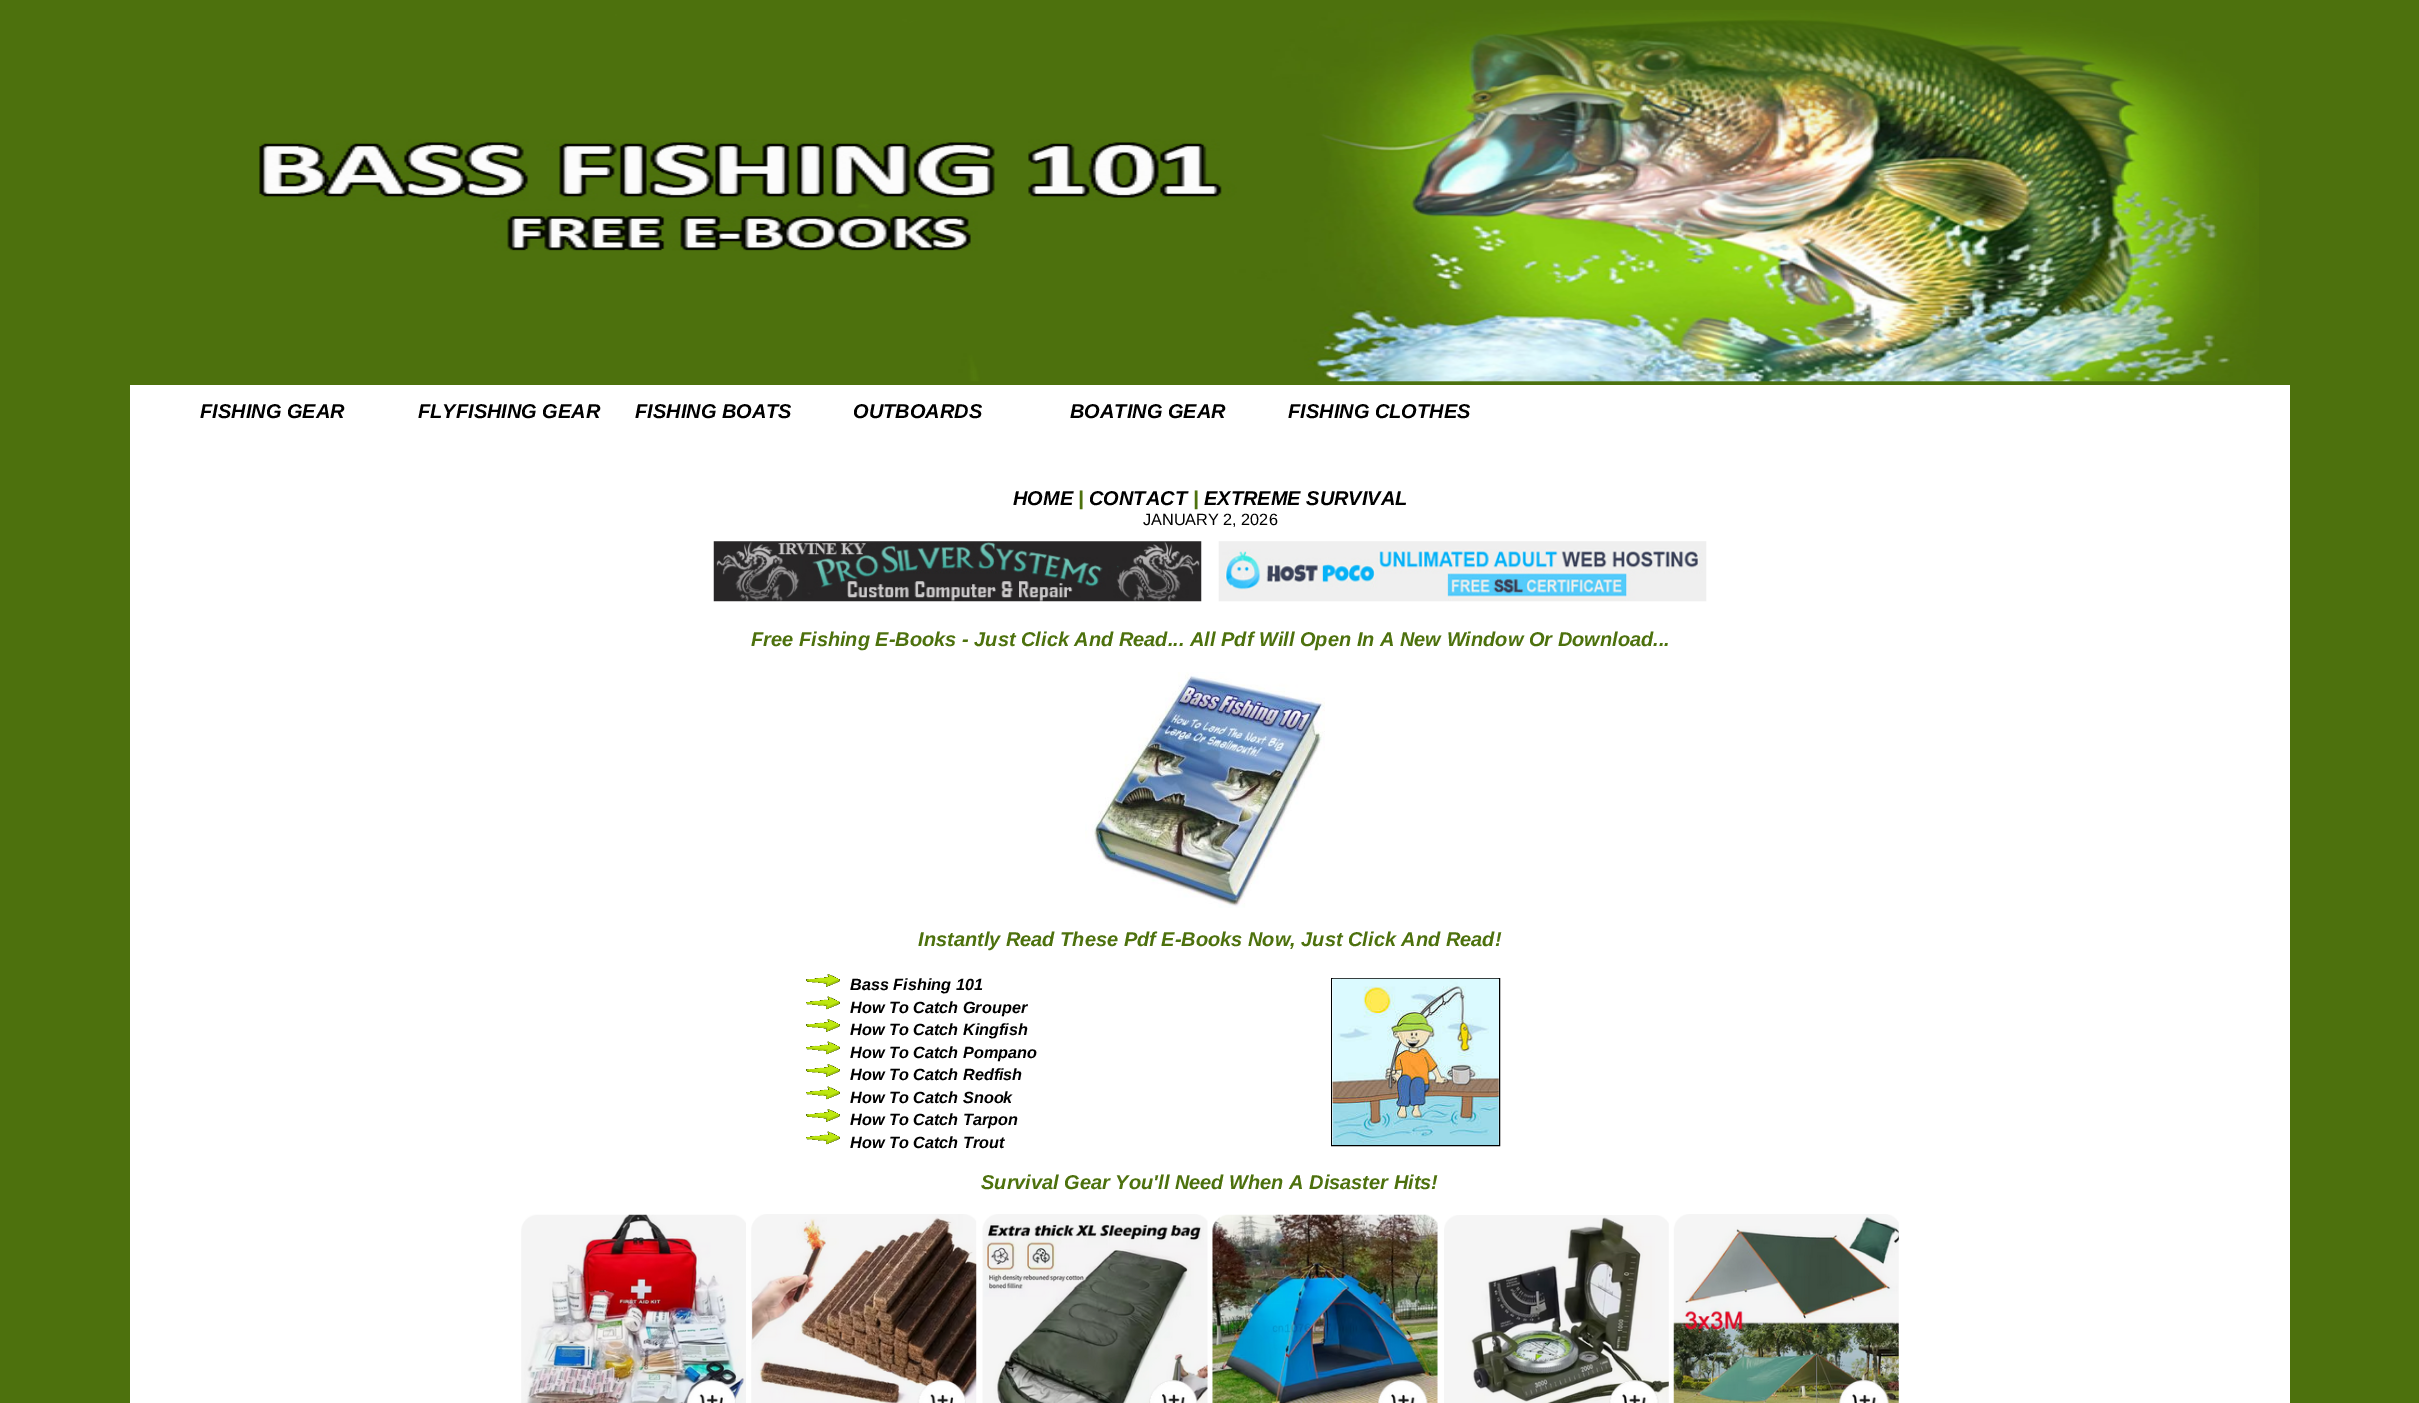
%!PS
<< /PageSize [2419 1403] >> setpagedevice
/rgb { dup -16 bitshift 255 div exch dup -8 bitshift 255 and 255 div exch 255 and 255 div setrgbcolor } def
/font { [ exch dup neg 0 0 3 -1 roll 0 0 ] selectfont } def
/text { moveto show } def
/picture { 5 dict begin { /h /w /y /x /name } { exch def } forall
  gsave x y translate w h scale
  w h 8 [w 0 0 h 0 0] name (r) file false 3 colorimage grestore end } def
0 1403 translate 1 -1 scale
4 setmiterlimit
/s1 { /LiberationSans-BoldItalic 20 font 16#000000 rgb } def
/s2 { /LiberationSans-BoldItalic 20 font 16#4D710D rgb } def
/s3 { /LiberationSans-Regular 16.25 font 16#000000 rgb } def
/s4 { /LiberationSans-BoldItalic 16.25 font 16#000000 rgb } def
16#4D710D rgb
0 0 2419 1403 rectfill
16#FFFFFF rgb
130 385 2160 1018 rectfill
(pic1.raw) 259 10 2000 372 picture
s1
(FISHING GEAR) 200 418 text
(FLYFISHING GEAR) 418 418 text
(FISHING BOATS) 635 418 text
(OUTBOARDS) 853 418 text
(BOATING GEAR) 1070 418 text
(FISHING CLOTHES) 1288 418 text
(HOME) 1013 505 text
s2
(|) 1078 505 text
s1
(CONTACT) 1089 505 text
s2
(|) 1193 505 text
s1
(EXTREME SURVIVAL) 1204 505 text
s3
(JANUARY 2, 2026) 1143 525 text
(pic2.raw) 713 541 489 61 picture
(pic3.raw) 1218 541 489 61 picture
s2
(Free Fishing E-Books - Just Click And Read... All Pdf Will Open In A New Window Or Download...) 751 646 text
(pic4.raw) 1085 672 240 236 picture
(Instantly Read These Pdf E-Books Now, Just Click And Read!) 918 946 text
(pic5.raw) 806 974 34 13 picture
s4
(Bass Fishing 101) 850 990 text
(pic6.raw) 806 996 34 14 picture
(How To Catch Grouper) 850 1013 text
(pic5.raw) 806 1019 34 13 picture
(How To Catch Kingfish) 850 1035 text
(pic6.raw) 806 1041 34 14 picture
(How To Catch Pompano) 850 1058 text
(pic5.raw) 806 1064 34 13 picture
(How To Catch Redfish) 850 1080 text
(pic6.raw) 806 1086 34 14 picture
(How To Catch Snook) 850 1103 text
(pic5.raw) 806 1109 34 13 picture
(How To Catch Tarpon) 850 1125 text
(pic6.raw) 806 1131 34 14 picture
(How To Catch Trout) 850 1148 text
1331.5 978.5 168 167 rectstroke
(pic7.raw) 1332 978 167 167 picture
s2
(Survival Gear You'll Need When A Disaster Hits!) 981 1189 text
(pic8.raw) 521 1214 225 189 picture
(pic9.raw) 751 1214 226 189 picture
(pic10.raw) 982 1214 226 189 picture
(pic11.raw) 1212 1214 226 189 picture
(pic12.raw) 1444 1215 225 188 picture
(pic13.raw) 1673 1214 226 189 picture
showpage
